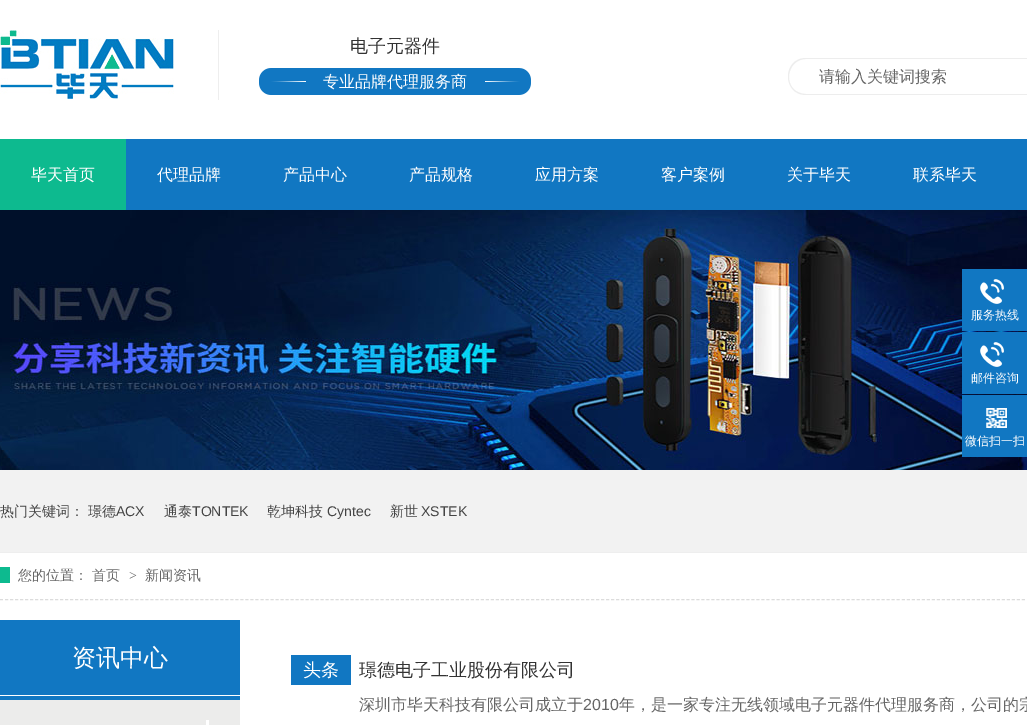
%!PS
<< /PageSize [1027 725] >> setpagedevice
/rgb { dup -16 bitshift 255 div exch dup -8 bitshift 255 and 255 div exch 255 and 255 div setrgbcolor } def
/font { [ exch dup neg 0 0 3 -1 roll 0 0 ] selectfont } def
/text { moveto show } def
/picture { 5 dict begin { /h /w /y /x /name } { exch def } forall
  gsave x y translate w h scale
  w h 8 [w 0 0 h 0 0] name (r) file false 3 colorimage grestore end } def
0 725 translate 1 -1 scale
4 setmiterlimit
/s1 { /WenQuanYiZenHei-Medium 18 font 16#333333 rgb } def
/s2 { /WenQuanYiZenHei-Medium 16 font 16#FFFFFF rgb } def
/s3 { /WenQuanYiZenHei-Medium 16 font 16#666666 rgb } def
/s4 { /WenQuanYiZenHei-Medium 12 font 16#FFFFFF rgb } def
/s5 { /WenQuanYiZenHei-Medium 14 font 16#444444 rgb } def
/s6 { /LiberationSans-Regular 14 font 16#444444 rgb } def
/s7 { /WenQuanYiZenHei-Medium 14 font 16#666666 rgb } def
/s8 { /LiberationSerif-Regular 14 font 16#666666 rgb } def
/s9 { /WenQuanYiZenHei-Medium 24 font 16#FFFFFF rgb } def
/s10 { /WenQuanYiZenHei-Medium 18 font 16#FFFFFF rgb } def
/s11 { /LiberationSans-Regular 16 font 16#666666 rgb } def
16#FFFFFF rgb
0 0 1027 725 rectfill
(pic1.raw) 0 30 174 69 picture
16#EEEEEE rgb
218 30 1 70 rectfill
s1
(电子元器件) 350 52 text
(pic2.raw) 259 68 272 27 picture
s2
(专业品牌代理服务商) 323 87 text
16#EDEDED rgb
806 58 moveto 782 58 782 95 806 95 curveto 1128 95 lineto 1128 94 lineto 806 94 lineto 803 94 799 93 796 91 curveto 783 82 789 59 806 59 curveto 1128 59 lineto 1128 58 lineto closepath fill
s3
(请输入关键词搜索) 819 82 text
16#0DBA8F rgb
0 139 126 71 rectfill
s2
(毕天首页) 31 180 text
16#1177C2 rgb
126 139 901 71 rectfill
s2
(代理品牌) 157 180 text
(产品中心) 283 180 text
(产品规格) 409 180 text
(应用方案) 535 180 text
(客户案例) 661 180 text
(关于毕天) 787 180 text
(联系毕天) 913 180 text
(pic3.raw) 0 210 1027 260 picture
16#1177C2 rgb
962 269 65 62 rectfill
(pic4.raw) 980 279 24 25 picture
s4
(服务热线) 971 319 text
16#1177C2 rgb
962 332 65 62 rectfill
(pic4.raw) 980 342 24 25 picture
s4
(邮件咨询) 971 382 text
16#1177C2 rgb
962 395 65 62 rectfill
(pic5.raw) 986 408 21 20 picture
s4
(微信扫一扫) 965 445 text
16#F2F2F2 rgb
0 470 1027 82 rectfill
16#EEEEEE rgb
0 552 1027 1 rectfill
s5
(热门关键词：) 0 516 text
(璟德) 88 516 text
s6
(ACX) 116 516 text
s5
(通泰) 164 516 text
s6
(TONTEK) 192 516 text
s5
(乾坤科技) 267 516 text
s6
(Cyntec) 327 516 text
s5
(新世) 390 516 text
s6
(XSTEK) 421 516 text
16#DCDCDC rgb
[3 2.01] 0 setdash
0 599.5 moveto 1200 599.5 lineto stroke
s7
(您的位置：) 18 580 text
16#0DBA8F rgb
0 567 10 16 rectfill
s7
(首页) 92 580 text
s8
(>) 129 580 text
s7
(新闻资讯) 145 580 text
16#1177C2 rgb
0 620 240 80 rectfill
16#FFFFFF rgb
0 695 240 1 rectfill
s9
(资讯中心) 72 666 text
16#ECECEB rgb
0 700 240 25 rectfill
16#FFFFFF rgb
206 720 3 5 rectfill
16#1177C2 rgb
291 655 60 30 rectfill
s10
(头条) 303 676 text
s1
(璟德电子工业股份有限公司) 359 676 text
s3
(深圳市毕天科技有限公司成立于) 359 710 text
s11
(2010) 583 710 text
s3
(年，是一家专注无线领域电子元器件代理服务商，公司的宗) 619 710 text
showpage
